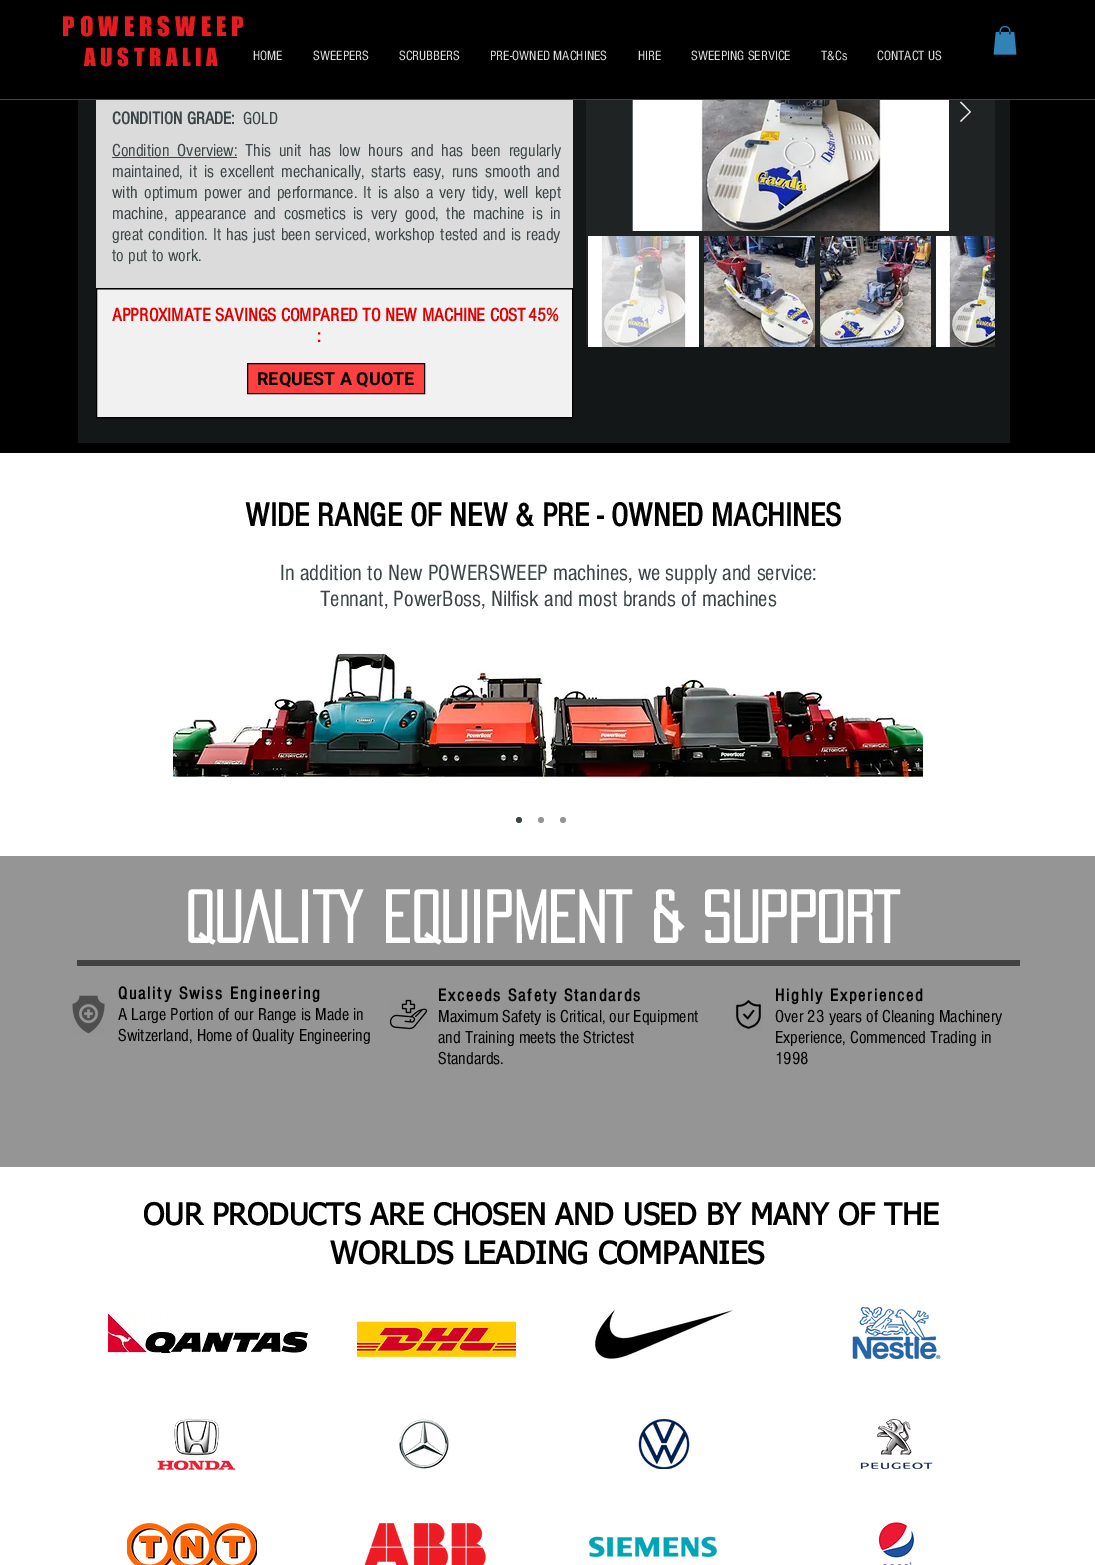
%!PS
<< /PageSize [1095 1565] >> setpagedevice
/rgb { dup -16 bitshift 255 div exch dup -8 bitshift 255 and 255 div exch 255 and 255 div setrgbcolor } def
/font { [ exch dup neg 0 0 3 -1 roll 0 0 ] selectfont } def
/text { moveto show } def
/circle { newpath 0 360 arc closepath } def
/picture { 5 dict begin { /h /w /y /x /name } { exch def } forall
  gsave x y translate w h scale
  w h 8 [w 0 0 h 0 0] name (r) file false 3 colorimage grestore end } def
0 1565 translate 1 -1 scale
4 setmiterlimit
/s1 { /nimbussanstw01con-Regular 14 font 16#DBDBDB rgb } def
/s2 { /nimbussanstw01con-Bold 18 font 16#3C4547 rgb } def
/s3 { /nimbussanstw01con-Regular 18 font 16#3C4547 rgb } def
/s4 { /nimbussanstw01con-Bold 19 font 16#E00202 rgb } def
/s5 { /nimbussanstw01con-Bold 19 font 16#D30B0B rgb } def
/s6 { /Roboto-Bold 18 font 16#000000 rgb } def
/s7 { /nimbussanstw01con-Bold 34 font 16#000000 rgb } def
/s8 { /nimbussanstw01con-Regular 23 font 16#3C4547 rgb } def
/s9 { /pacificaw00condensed-Bold 65 font 16#FFFFFF rgb } def
/s10 { /nimbussanstw01con-Regular 18 font 16#000000 rgb } def
/s11 { /tahoma-Bold 30 font 16#000000 rgb } def
/s12 { /tahoma-Bold 31 font 16#000000 rgb } def
16#FFFFFF rgb
0 0 1095 1565 rectfill
16#000000 rgb
0 0 1095 99 rectfill
16#3C4547 rgb
0 99 1095 1 rectfill
/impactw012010-Regular 25 font
16#E21C21 rgb
62 36 moveto 5 0 (POWERSWEEP) ashow
(pic1.raw) 993 26 24 29 picture
/impactw012010-Regular 23 font
84 66 moveto 4.5 0 (AUSTRALIA) ashow
s1
(HOME) 253 60 text
(SWEEPERS) 313 60 text
(SCRUBBERS) 399 60 text
(PRE-OWNED MACHINES) 490 60 text
(HIRE) 638 60 text
(SWEEPING SERVICE) 691 60 text
(T&Cs) 821 60 text
(CONTACT US) 877 60 text
16#000000 rgb
0 100 1095 353 rectfill
16#141717 rgb
78 100 932 343 rectfill
16#DBDBDB rgb
96 100 477 188 rectfill
16#F1F1F1 rgb
97 290 475 127 rectfill
s2
(CONDITION GRADE:) 112 124 text
s3
(GOLD) 243 124 text
112 156 moveto 3.75 0 32 (Condition Overview:) widthshow
112 157 125 1 rectfill
245 156 moveto 3.75 0 32 (This unit has low hours and has been regularly) widthshow
112 177 moveto 2.5 0 32 (maintained, it is excellent mechanically, starts easy, runs smooth and) widthshow
112 198 moveto 2.1 0 32 (with optimum power and performance. It is also a very tidy, well kept) widthshow
112 219 moveto 3.4 0 32 (machine, appearance and cosmetics is very good, the machine is in) widthshow
112 240 moveto 1 0 32 (great condition. It has just been serviced, workshop tested and is ready) widthshow
(to put to work.) 112 261 text
16#999999 rgb
96 289 477 1 rectfill
16#000000 rgb
96.5 288.5 476 129 rectstroke
s4
(APPROXIMATE SAVINGS COMPARED TO NEW MACHINE COST) 112 321 text
(:) 317 342 text
s5
(45%) 528 321 text
16#FF4040 rgb
247.5 363.5 moveto 424.5 363.5 lineto 424.5 393.5 lineto 247.5 393.5 lineto closepath gsave fill grestore
16#000000 rgb
stroke
s6
(REQUEST A QUOTE) 257 385 text
16#202323 rgb
586 100 409 245 rectfill
16#606769 rgb
632 100 1 131 rectfill
(pic2.raw) 633 100 316 131 picture
16#E9E9E9 rgb
960 102.5 moveto 961 101.5 lineto 971 112 lineto 961 122 lineto 960 121 lineto 969.5 112 lineto closepath fill
16#FFFFFF rgb
588 236 12 111 rectfill
(pic3.raw) 600 236 99 111 picture
(pic4.raw) 704 236 111 111 picture
(pic5.raw) 820 236 111 111 picture
936 236 12 111 rectfill
(pic6.raw) 948 236 47 111 picture
s7
(WIDE RANGE OF NEW & PRE - OWNED MACHINES) 245 526 text
s8
(In addition to New POWERSWEEP machines, we supply and service:) 280 580 text
(Tennant, PowerBoss, Nilfisk and most brands of machines) 320 606 text
(pic7.raw) 173 651 750 126 picture
519 820 3 circle fill
16#959596 rgb
541 820 3 circle fill
563 820 3 circle fill
0 856 1095 311 rectfill
s9
(QUALITY EQUIPMENT & SUPPORT) 185 943 text
16#424242 rgb
77 960 943 6 rectfill
(pic8.raw) 72 995 33 39 picture
/nimbussanstw01con-Bold 18 font
16#000000 rgb
118 999 moveto 1.8 0 (Quality Swiss Engineering) ashow
s10
(A Large Portion of our Range is Made in) 118 1020 text
(Switzerland, Home of Quality Engineering) 118 1041 text
(pic9.raw) 389 999 39 31 picture
/nimbussanstw01con-Bold 18 font
438 1001 moveto 1.8 0 (Exceeds Safety Standards) ashow
s10
(Maximum Safety is Critical, our Equipment) 438 1022 text
(and Training meets the Strictest) 438 1043 text
(Standards.) 438 1064 text
(pic10.raw) 734 1000 29 31 picture
/nimbussanstw01con-Bold 18 font
775 1001 moveto 1.8 0 (Highly Experienced) ashow
s10
(Over 23 years of Cleaning Machinery) 775 1022 text
(Experience, Commenced Trading in) 775 1043 text
(1998) 775 1064 text
s11
(OUR PRODUCTS ARE CHOSEN AND USED BY MANY OF THE) 143 1225 text
s12
(WORLDS LEADING COMPANIES) 330 1264 text
(pic11.raw) 108 1314 200 39 picture
(pic12.raw) 357 1321 159 36 picture
(pic13.raw) 595 1309 138 50 picture
(pic14.raw) 852 1307 89 52 picture
(pic15.raw) 157 1419 79 51 picture
(pic16.raw) 399 1419 50 50 picture
(pic17.raw) 638 1419 52 50 picture
(pic18.raw) 860 1419 73 50 picture
(pic19.raw) 127 1523 130 42 picture
(pic20.raw) 364 1523 122 42 picture
(pic21.raw) 589 1536 128 22 picture
(pic22.raw) 878 1522 36 43 picture
showpage
